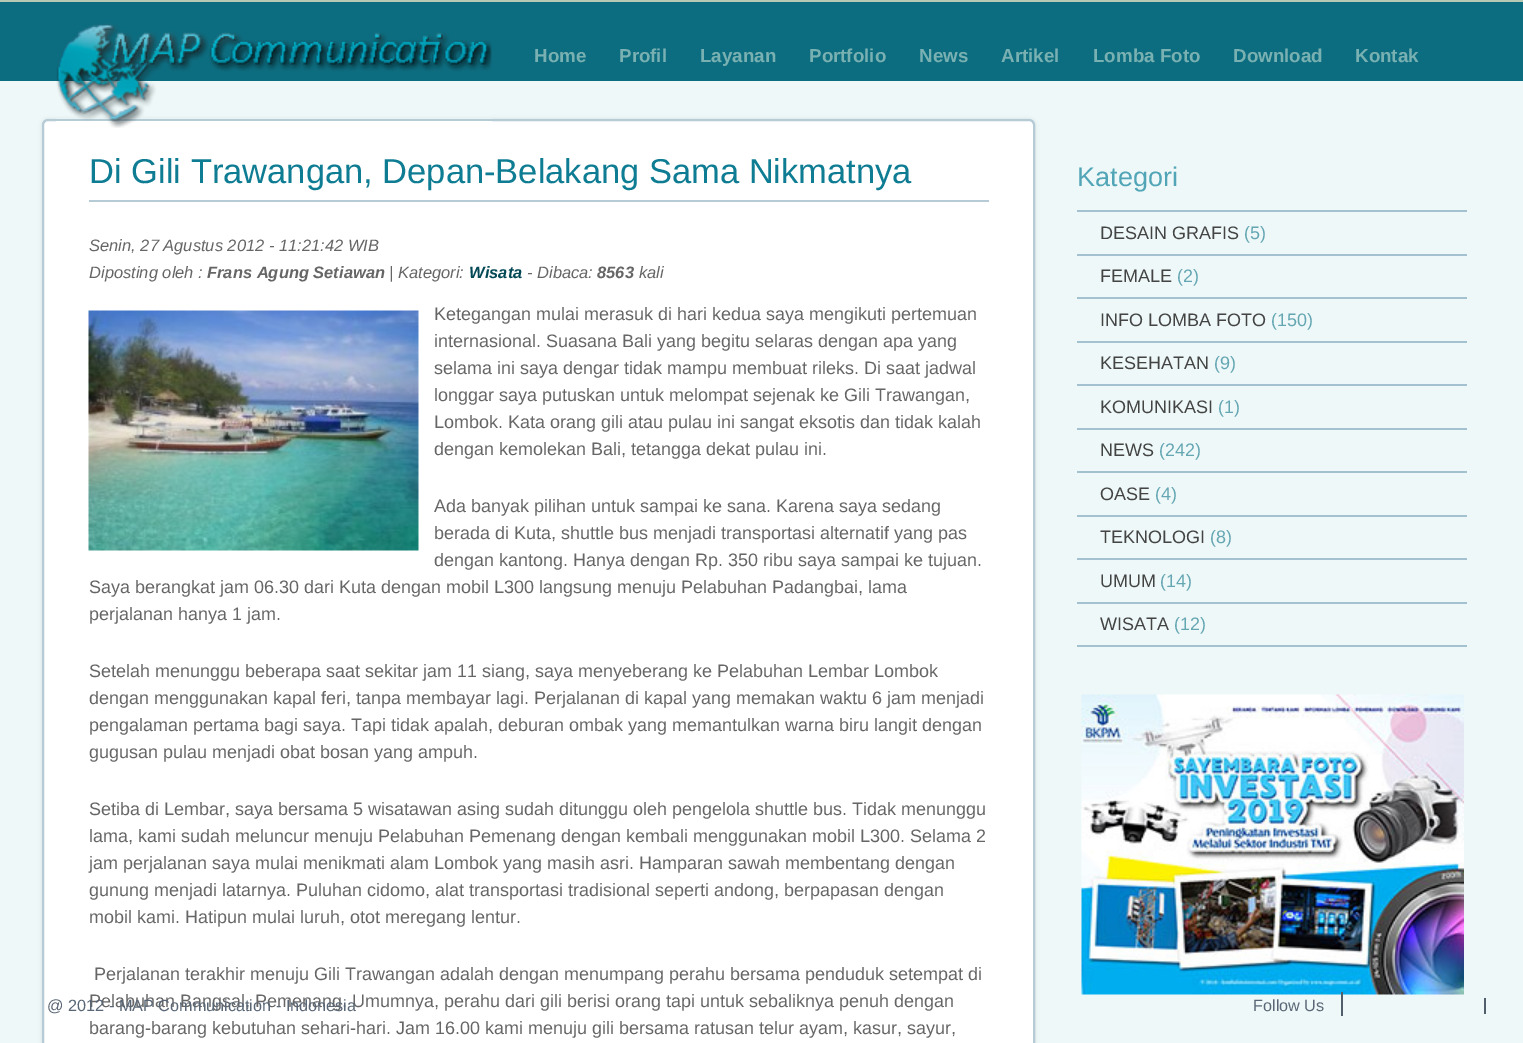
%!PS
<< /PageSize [1523 1043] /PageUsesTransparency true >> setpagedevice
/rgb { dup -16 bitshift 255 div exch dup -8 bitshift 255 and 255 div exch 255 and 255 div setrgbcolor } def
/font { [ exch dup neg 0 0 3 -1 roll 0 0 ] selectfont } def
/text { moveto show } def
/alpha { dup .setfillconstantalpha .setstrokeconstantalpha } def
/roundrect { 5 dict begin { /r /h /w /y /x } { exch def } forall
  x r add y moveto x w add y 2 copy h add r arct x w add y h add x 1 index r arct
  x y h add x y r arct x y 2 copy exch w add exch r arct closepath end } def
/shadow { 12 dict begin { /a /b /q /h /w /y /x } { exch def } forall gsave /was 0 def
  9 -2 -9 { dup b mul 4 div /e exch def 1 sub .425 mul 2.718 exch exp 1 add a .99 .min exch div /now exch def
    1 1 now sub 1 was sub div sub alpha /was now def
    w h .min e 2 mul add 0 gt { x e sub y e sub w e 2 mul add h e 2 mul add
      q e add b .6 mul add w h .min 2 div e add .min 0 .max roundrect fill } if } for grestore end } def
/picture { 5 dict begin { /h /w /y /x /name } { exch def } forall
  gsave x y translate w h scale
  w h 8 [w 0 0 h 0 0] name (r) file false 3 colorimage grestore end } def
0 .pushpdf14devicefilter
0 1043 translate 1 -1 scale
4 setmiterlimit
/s1 { /LiberationSans-Bold 18.75 font 16#79B0B2 rgb } def
/s2 { /LiberationSans-Regular 34.5 font 16#0E7C92 rgb } def
/s3 { /LiberationSans-Italic 16.5 font 16#666666 rgb } def
/s4 { /LiberationSans-BoldItalic 16.5 font 16#666666 rgb } def
/s5 { /LiberationSans-BoldItalic 16.5 font 16#034855 rgb } def
/s6 { /LiberationSans-Regular 18 font 16#666666 rgb } def
/s7 { /LiberationSans-Regular 27 font 16#51A5B6 rgb } def
/s8 { /LiberationSans-Regular 18 font 16#444444 rgb } def
/s9 { /LiberationSans-Regular 18 font 16#65A6B3 rgb } def
/s10 { /LiberationSans-Regular 16.25 font 16#596675 rgb } def
16#0D6D80 rgb
0 0 1523 1043 rectfill
16#B6C9B2 rgb
0 0 1523 2 rectfill
16#EEF8F8 rgb
0 81 1523 962 rectfill
16#000000 rgb
42 119 993 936 6 2 0.1 shadow
16#FFFFFF rgb
43 120 991 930 5 roundrect gsave fill grestore
16#B5CBD6 rgb
2 setlinewidth
stroke
(pic1.raw) 56 23 436 105 picture
s1
(Home) 534 62 text
(Profil) 619 62 text
(Layanan) 700 62 text
(Portfolio) 809 62 text
(News) 919 62 text
(Artikel) 1001 62 text
(Lomba Foto) 1093 62 text
(Download) 1233 62 text
(Kontak) 1355 62 text
16#B5CBD6 rgb
89 200 900 2 rectfill
s2
(Di Gili Trawangan, Depan-Belakang Sama Nikmatnya) 89 183 text
s3
(Senin, 27 Agustus 2012 - 11:21:42 WIB) 89 251 text
(Diposting oleh :) 89 278 text
s4
(Frans Agung Setiawan) 207 278 text
s3
(| Kategori:) 389 278 text
s5
(Wisata) 469 278 text
s3
(- Dibaca:) 527 278 text
s4
(8563) 597 278 text
s3
(kali) 639 278 text
(pic2.raw) 88 310 331 241 picture
s6
(Ketegangan mulai merasuk di hari kedua saya mengikuti pertemuan) 434 320 text
(internasional. Suasana Bali yang begitu selaras dengan apa yang) 434 347 text
(selama ini saya dengar tidak mampu membuat rileks. Di saat jadwal) 434 374 text
(longgar saya putuskan untuk melompat sejenak ke Gili Trawangan,) 434 401 text
(Lombok. Kata orang gili atau pulau ini sangat eksotis dan tidak kalah) 434 428 text
(dengan kemolekan Bali, tetangga dekat pulau ini.) 434 455 text
(Ada banyak pilihan untuk sampai ke sana. Karena saya sedang) 434 512 text
(berada di Kuta, shuttle bus menjadi transportasi alternatif yang pas) 434 539 text
(dengan kantong. Hanya dengan Rp. 350 ribu saya sampai ke tujuan.) 434 566 text
(Saya berangkat jam 06.30 dari Kuta dengan mobil L300 langsung menuju Pelabuhan Padangbai, lama) 89 593 text
(perjalanan hanya 1 jam.) 89 620 text
(Setelah menunggu beberapa saat sekitar jam 11 siang, saya menyeberang ke Pelabuhan Lembar Lombok) 89 677 text
(dengan menggunakan kapal feri, tanpa membayar lagi. Perjalanan di kapal yang memakan waktu 6 jam menjadi) 89 704 text
(pengalaman pertama bagi saya. Tapi tidak apalah, deburan ombak yang memantulkan warna biru langit dengan) 89 731 text
(gugusan pulau menjadi obat bosan yang ampuh.) 89 758 text
(Setiba di Lembar, saya bersama 5 wisatawan asing sudah ditunggu oleh pengelola shuttle bus. Tidak menunggu) 89 815 text
(lama, kami sudah meluncur menuju Pelabuhan Pemenang dengan kembali menggunakan mobil L300. Selama 2) 89 842 text
(jam perjalanan saya mulai menikmati alam Lombok yang masih asri. Hamparan sawah membentang dengan) 89 869 text
(gunung menjadi latarnya. Puluhan cidomo, alat transportasi tradisional seperti andong, berpapasan dengan) 89 896 text
(mobil kami. Hatipun mulai luruh, otot meregang lentur.) 89 923 text
(Perjalanan terakhir menuju Gili Trawangan adalah dengan menumpang perahu bersama penduduk setempat di) 94 980 text
(Pelabuhan Bangsal, Pemenang. Umumnya, perahu dari gili berisi orang tapi untuk sebaliknya penuh dengan) 89 1007 text
(barang-barang kebutuhan sehari-hari. Jam 16.00 kami menuju gili bersama ratusan telur ayam, kasur, sayur,) 89 1034 text
s7
(Kategori) 1077 186 text
16#A4C1CF rgb
1077 210 390 2 rectfill
1077 254 390 2 rectfill
s8
(DESAIN GRAFIS) 1100 239 text
s9
(\(5\)) 1244 239 text
16#A4C1CF rgb
1077 297 390 2 rectfill
s8
(FEMALE) 1100 282 text
s9
(\(2\)) 1177 282 text
16#A4C1CF rgb
1077 341 390 2 rectfill
s8
(INFO LOMBA FOTO) 1100 326 text
s9
(\(150\)) 1271 326 text
16#A4C1CF rgb
1077 384 390 2 rectfill
s8
(KESEHATAN) 1100 369 text
s9
(\(9\)) 1214 369 text
16#A4C1CF rgb
1077 428 390 2 rectfill
s8
(KOMUNIKASI) 1100 413 text
s9
(\(1\)) 1218 413 text
16#A4C1CF rgb
1077 471 390 2 rectfill
s8
(NEWS) 1100 456 text
s9
(\(242\)) 1159 456 text
16#A4C1CF rgb
1077 515 390 2 rectfill
s8
(OASE) 1100 500 text
s9
(\(4\)) 1155 500 text
16#A4C1CF rgb
1077 558 390 2 rectfill
s8
(TEKNOLOGI) 1100 543 text
s9
(\(8\)) 1210 543 text
16#A4C1CF rgb
1077 602 390 2 rectfill
s8
(UMUM) 1100 587 text
s9
(\(14\)) 1160 587 text
16#A4C1CF rgb
1077 645 390 2 rectfill
s8
(WISATA) 1100 630 text
s9
(\(12\)) 1174 630 text
(pic3.raw) 1081 694 383 301 picture
s10
(@ 2012 - MAP Communication - Indonesia) 47 1011 text
(Follow Us) 1253 1011 text
16#515E6C rgb
1341 992 2 24 rectfill
1484 998 2 16 rectfill
.poppdf14devicefilter showpage
